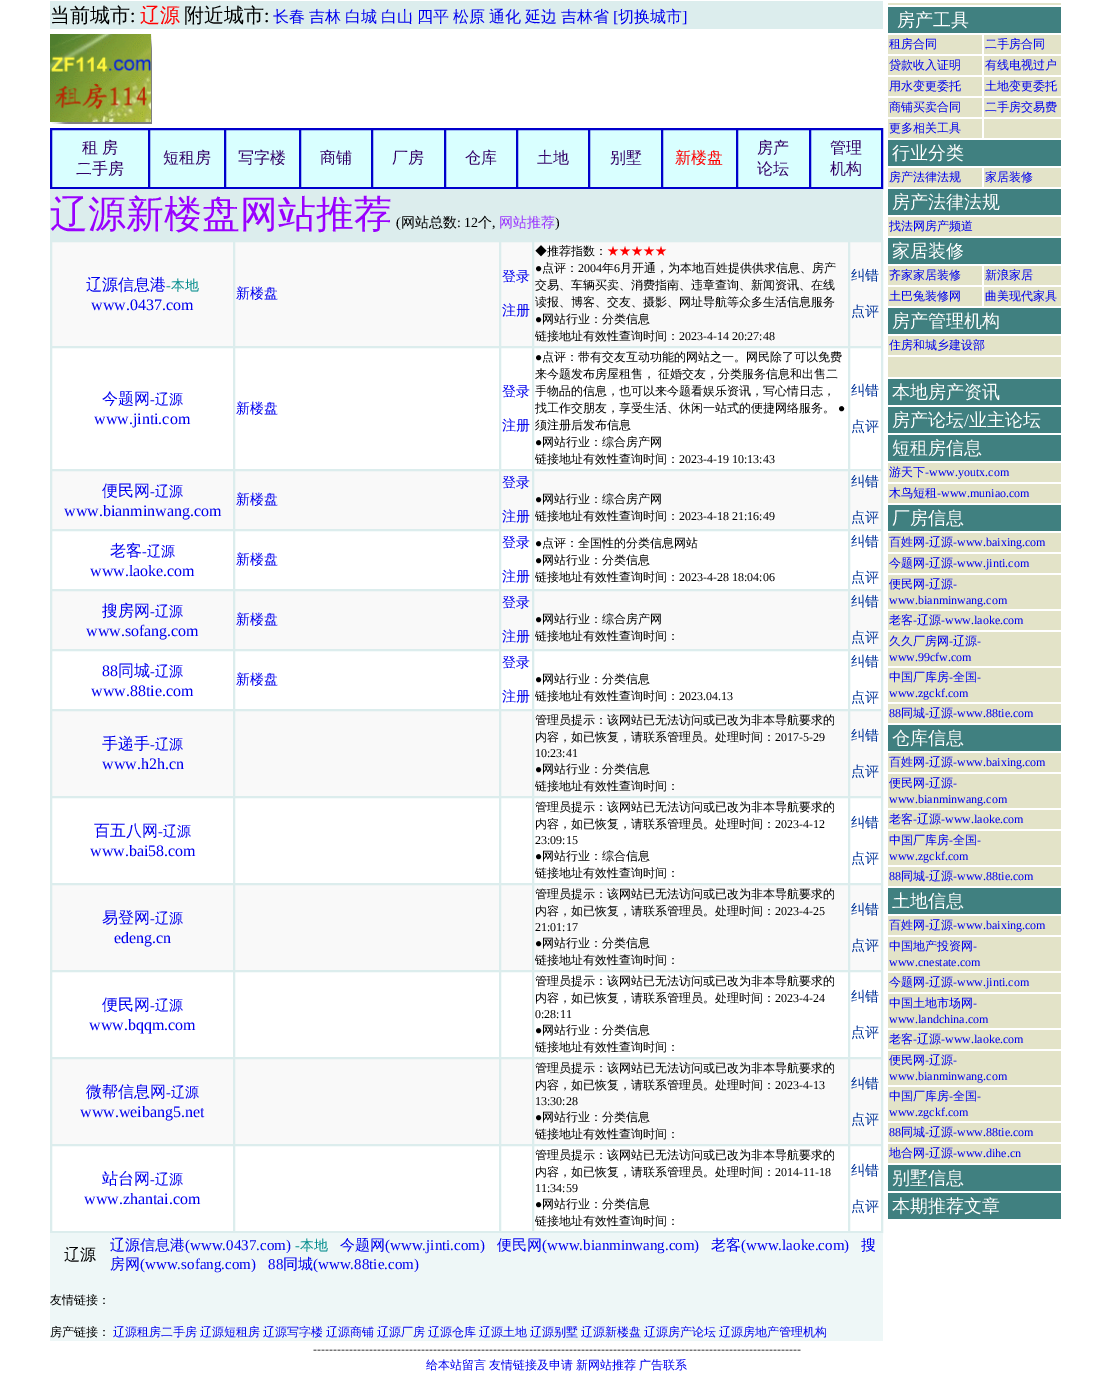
%!PS
<< /PageSize [1113 1392] >> setpagedevice
/rgb { dup -16 bitshift 255 div exch dup -8 bitshift 255 and 255 div exch 255 and 255 div setrgbcolor } def
/font { [ exch dup neg 0 0 3 -1 roll 0 0 ] selectfont } def
/text { moveto show } def
/picture { 5 dict begin { /h /w /y /x /name } { exch def } forall
  gsave x y translate w h scale
  w h 8 [w 0 0 h 0 0] name (r) file false 3 colorimage grestore end } def
0 1392 translate 1 -1 scale
4 setmiterlimit
/s1 { /WenQuanYiZenHei-Medium 20 font 16#000000 rgb } def
/s2 { /LiberationSerif-Regular 20 font 16#000000 rgb } def
/s3 { /WenQuanYiZenHei-Medium 20 font 16#FF0000 rgb } def
/s4 { /WenQuanYiZenHei-Medium 16 font 16#0000EE rgb } def
/s5 { /LiberationSerif-Regular 16 font 16#0000EE rgb } def
/s6 { /WenQuanYiZenHei-Medium 16 font 16#330066 rgb } def
/s7 { /WenQuanYiZenHei-Medium 16 font 16#FF0000 rgb } def
/s8 { /WenQuanYiZenHei-Medium 38 font 16#9900FF rgb } def
/s9 { /LiberationSerif-Regular 14 font 16#000000 rgb } def
/s10 { /WenQuanYiZenHei-Medium 14 font 16#000000 rgb } def
/s11 { /WenQuanYiZenHei-Medium 14 font 16#9933FF rgb } def
/s12 { /LiberationSerif-Regular 14 font 16#008B8B rgb } def
/s13 { /WenQuanYiZenHei-Medium 14 font 16#008B8B rgb } def
/s14 { /WenQuanYiZenHei-Medium 14 font 16#0000EE rgb } def
/s15 { /WenQuanYiZenHei-Medium 12 font 16#000000 rgb } def
/s16 { /WenQuanYiZenHei-Medium 12 font 16#FF0000 rgb } def
/s17 { /LiberationSerif-Regular 12 font 16#000000 rgb } def
/s18 { /WenQuanYiZenHei-Medium 14 font 16#003399 rgb } def
/s19 { /LiberationSerif-Regular 14 font 16#0000EE rgb } def
/s20 { /WenQuanYiZenHei-Medium 16 font 16#000000 rgb } def
/s21 { /WenQuanYiZenHei-Medium 15 font 16#0000EE rgb } def
/s22 { /LiberationSerif-Regular 15 font 16#0000EE rgb } def
/s23 { /WenQuanYiZenHei-Medium 12 font 16#0000EE rgb } def
/s24 { /WenQuanYiZenHei-Medium 18 font 16#FFFFFF rgb } def
/s25 { /LiberationSerif-Regular 18 font 16#FFFFFF rgb } def
/s26 { /LiberationSerif-Regular 12 font 16#0000EE rgb } def
16#FFFFFF rgb
0 0 1113 1392 rectfill
16#DCEDED rgb
50 1 833 28 rectfill
s1
(当前城市) 50 22 text
s2
(:) 130 22 text
s3
(辽源) 140 22 text
s1
(附近城市) 184 22 text
s2
(:) 264 22 text
s4
(长春) 273 22 text
(吉林) 309 22 text
(白城) 345 22 text
(白山) 381 22 text
(四平) 417 22 text
(松原) 453 22 text
(通化) 489 22 text
(延边) 525 22 text
(吉林省) 561 22 text
s5
([) 613 22 text
s4
(切换城市) 618 22 text
s5
(]) 682 22 text
(pic1.raw) 50 34 102 90 picture
16#0000CC rgb
50.5 128.5 832 60 rectstroke
16#D9FFFF rgb
52 130 829 57 rectfill
16#0000CC rgb
51.5 129.5 97 58 rectstroke
s6
(租) 82 153 text
(房) 102 153 text
(二手房) 76 174 text
16#0000CC rgb
149.5 129.5 75 58 rectstroke
s6
(短租房) 163 163 text
16#0000CC rgb
225.5 129.5 74 58 rectstroke
s6
(写字楼) 238 163 text
16#0000CC rgb
300.5 129.5 71 58 rectstroke
s6
(商铺) 320 163 text
16#0000CC rgb
372.5 129.5 72 58 rectstroke
s6
(厂房) 392 163 text
16#0000CC rgb
445.5 129.5 71 58 rectstroke
s6
(仓库) 465 163 text
16#0000CC rgb
517.5 129.5 71 58 rectstroke
s6
(土地) 537 163 text
16#0000CC rgb
589.5 129.5 72 58 rectstroke
s6
(别墅) 610 163 text
16#0000CC rgb
662.5 129.5 74 58 rectstroke
s7
(新楼盘) 675 163 text
16#0000CC rgb
737.5 129.5 72 58 rectstroke
s6
(房产) 757 153 text
(论坛) 757 174 text
16#0000CC rgb
810.5 129.5 71 58 rectstroke
s6
(管理) 830 153 text
(机构) 830 174 text
16#DCEDED rgb
50 189 833 51 rectfill
s8
(辽源新楼盘网站推荐) 50 227 text
s9
(\() 396 227 text
s10
(网站总数) 401 227 text
s9
(: 12) 457 227 text
s10
(个) 478 227 text
s9
(,) 492 227 text
s11
(网站推荐) 499 227 text
s9
(\)) 555 227 text
16#DCEDED rgb
50.5 240.5 832 992 rectstroke
16#F9F9F9 rgb
51.5 241.5 moveto 233.5 241.5 lineto 233.5 346.5 lineto 51.5 346.5 lineto closepath gsave fill grestore
16#DCEDED rgb
stroke
s4
(辽源信息港) 86 290 text
s12
(-) 166 290 text
s13
(本地) 171 290 text
s5
(www.0437.com) 91 310 text
16#F9F9F9 rgb
234.5 241.5 moveto 499.5 241.5 lineto 499.5 346.5 lineto 234.5 346.5 lineto closepath gsave fill grestore
16#DCEDED rgb
stroke
s14
(新楼盘) 236 298 text
16#F9F9F9 rgb
500.5 241.5 moveto 532.5 241.5 lineto 532.5 346.5 lineto 500.5 346.5 lineto closepath gsave fill grestore
16#DCEDED rgb
stroke
s14
(登录) 502 281 text
(注册) 502 315 text
16#F9F9F9 rgb
533.5 241.5 moveto 848.5 241.5 lineto 848.5 346.5 lineto 533.5 346.5 lineto closepath gsave fill grestore
16#DCEDED rgb
stroke
s15
(◆推荐指数：) 535 255 text
s16
(★★★★★) 607 255 text
s17
(●) 535 272 text
s15
(点评：) 542 272 text
s17
(2004) 578 272 text
s15
(年) 602 272 text
s17
(6) 614 272 text
s15
(月开通，为本地百姓提供供求信息、房产) 620 272 text
(交易、车辆买卖、消费指南、违章查询、新闻资讯、在线) 535 289 text
(读报、博客、交友、摄影、网址导航等众多生活信息服务) 535 306 text
s17
(●) 535 323 text
s15
(网站行业：分类信息) 542 323 text
(链接地址有效性查询时间：) 535 340 text
s17
(2023-4-14 20:27:48) 679 340 text
16#F9F9F9 rgb
849.5 241.5 moveto 881.5 241.5 lineto 881.5 346.5 lineto 849.5 346.5 lineto closepath gsave fill grestore
16#DCEDED rgb
stroke
s18
(纠错) 851 280 text
(点评) 851 316 text
16#DCEDED rgb
51.5 347.5 182 122 rectstroke
s4
(今题网) 102 404 text
s19
(-) 150 404 text
s14
(辽源) 155 404 text
s5
(www.jinti.com) 94 424 text
16#DCEDED rgb
234.5 347.5 265 122 rectstroke
s14
(新楼盘) 236 413 text
16#DCEDED rgb
500.5 347.5 32 122 rectstroke
s14
(登录) 502 396 text
(注册) 502 430 text
16#DCEDED rgb
533.5 347.5 315 122 rectstroke
s17
(●) 535 361 text
s15
(点评：带有交友互动功能的网站之一。网民除了可以免费) 542 361 text
535 378 moveto -1 0 32 (来今题发布房屋租售， 征婚交友，分类服务信息和出售二) widthshow
(手物品的信息，也可以来今题看娱乐资讯，写心情日志，) 535 395 text
(找工作交朋友，享受生活、休闲一站式的便捷网络服务。) 535 412 text
s17
(●) 838 412 text
s15
(须注册后发布信息) 535 429 text
s17
(●) 535 446 text
s15
(网站行业：综合房产网) 542 446 text
(链接地址有效性查询时间：) 535 463 text
s17
(2023-4-19 10:13:43) 679 463 text
16#DCEDED rgb
849.5 347.5 32 122 rectstroke
s18
(纠错) 851 395 text
(点评) 851 431 text
16#F9F9F9 rgb
51.5 470.5 moveto 233.5 470.5 lineto 233.5 529.5 lineto 51.5 529.5 lineto closepath gsave fill grestore
16#DCEDED rgb
stroke
s4
(便民网) 102 496 text
s19
(-) 150 496 text
s14
(辽源) 155 496 text
s5
(www.bianminwang.com) 64 516 text
16#F9F9F9 rgb
234.5 470.5 moveto 499.5 470.5 lineto 499.5 529.5 lineto 234.5 529.5 lineto closepath gsave fill grestore
16#DCEDED rgb
stroke
s14
(新楼盘) 236 504 text
16#F9F9F9 rgb
500.5 470.5 moveto 532.5 470.5 lineto 532.5 529.5 lineto 500.5 529.5 lineto closepath gsave fill grestore
16#DCEDED rgb
stroke
s14
(登录) 502 487 text
(注册) 502 521 text
16#F9F9F9 rgb
533.5 470.5 moveto 848.5 470.5 lineto 848.5 529.5 lineto 533.5 529.5 lineto closepath gsave fill grestore
16#DCEDED rgb
stroke
s17
(●) 535 503 text
s15
(网站行业：综合房产网) 542 503 text
(链接地址有效性查询时间：) 535 520 text
s17
(2023-4-18 21:16:49) 679 520 text
16#F9F9F9 rgb
849.5 470.5 moveto 881.5 470.5 lineto 881.5 529.5 lineto 849.5 529.5 lineto closepath gsave fill grestore
16#DCEDED rgb
stroke
s18
(纠错) 851 486 text
(点评) 851 522 text
16#DCEDED rgb
51.5 530.5 182 59 rectstroke
s4
(老客) 110 556 text
s19
(-) 142 556 text
s14
(辽源) 147 556 text
s5
(www.laoke.com) 90 576 text
16#DCEDED rgb
234.5 530.5 265 59 rectstroke
s14
(新楼盘) 236 564 text
16#DCEDED rgb
500.5 530.5 32 59 rectstroke
s14
(登录) 502 547 text
(注册) 502 581 text
16#DCEDED rgb
533.5 530.5 315 59 rectstroke
s17
(●) 535 547 text
s15
(点评：全国性的分类信息网站) 542 547 text
s17
(●) 535 564 text
s15
(网站行业：分类信息) 542 564 text
(链接地址有效性查询时间：) 535 581 text
s17
(2023-4-28 18:04:06) 679 581 text
16#DCEDED rgb
849.5 530.5 32 59 rectstroke
s18
(纠错) 851 546 text
(点评) 851 582 text
16#F9F9F9 rgb
51.5 590.5 moveto 233.5 590.5 lineto 233.5 649.5 lineto 51.5 649.5 lineto closepath gsave fill grestore
16#DCEDED rgb
stroke
s4
(搜房网) 102 616 text
s19
(-) 150 616 text
s14
(辽源) 155 616 text
s5
(www.sofang.com) 86 636 text
16#F9F9F9 rgb
234.5 590.5 moveto 499.5 590.5 lineto 499.5 649.5 lineto 234.5 649.5 lineto closepath gsave fill grestore
16#DCEDED rgb
stroke
s14
(新楼盘) 236 624 text
16#F9F9F9 rgb
500.5 590.5 moveto 532.5 590.5 lineto 532.5 649.5 lineto 500.5 649.5 lineto closepath gsave fill grestore
16#DCEDED rgb
stroke
s14
(登录) 502 607 text
(注册) 502 641 text
16#F9F9F9 rgb
533.5 590.5 moveto 848.5 590.5 lineto 848.5 649.5 lineto 533.5 649.5 lineto closepath gsave fill grestore
16#DCEDED rgb
stroke
s17
(●) 535 623 text
s15
(网站行业：综合房产网) 542 623 text
(链接地址有效性查询时间：) 535 640 text
16#F9F9F9 rgb
849.5 590.5 moveto 881.5 590.5 lineto 881.5 649.5 lineto 849.5 649.5 lineto closepath gsave fill grestore
16#DCEDED rgb
stroke
s18
(纠错) 851 606 text
(点评) 851 642 text
16#DCEDED rgb
51.5 650.5 182 59 rectstroke
s5
(88) 102 676 text
s4
(同城) 118 676 text
s19
(-) 150 676 text
s14
(辽源) 155 676 text
s5
(www.88tie.com) 91 696 text
16#DCEDED rgb
234.5 650.5 265 59 rectstroke
s14
(新楼盘) 236 684 text
16#DCEDED rgb
500.5 650.5 32 59 rectstroke
s14
(登录) 502 667 text
(注册) 502 701 text
16#DCEDED rgb
533.5 650.5 315 59 rectstroke
s17
(●) 535 683 text
s15
(网站行业：分类信息) 542 683 text
(链接地址有效性查询时间：) 535 700 text
s17
(2023.04.13) 679 700 text
16#DCEDED rgb
849.5 650.5 32 59 rectstroke
s18
(纠错) 851 666 text
(点评) 851 702 text
16#F9F9F9 rgb
51.5 710.5 moveto 233.5 710.5 lineto 233.5 796.5 lineto 51.5 796.5 lineto closepath gsave fill grestore
16#DCEDED rgb
stroke
s4
(手递手) 102 749 text
s19
(-) 150 749 text
s14
(辽源) 155 749 text
s5
(www.h2h.cn) 102 769 text
16#F9F9F9 rgb
234.5 710.5 moveto 499.5 710.5 lineto 499.5 796.5 lineto 234.5 796.5 lineto closepath gsave fill grestore
16#DCEDED rgb
stroke
16#F9F9F9 rgb
500.5 710.5 moveto 532.5 710.5 lineto 532.5 796.5 lineto 500.5 796.5 lineto closepath gsave fill grestore
16#DCEDED rgb
stroke
16#F9F9F9 rgb
533.5 710.5 moveto 848.5 710.5 lineto 848.5 796.5 lineto 533.5 796.5 lineto closepath gsave fill grestore
16#DCEDED rgb
stroke
s15
(管理员提示：该网站已无法访问或已改为非本导航要求的) 535 724 text
(内容，如已恢复，请联系管理员。处理时间：) 535 741 text
s17
(2017-5-29) 775 741 text
(10:23:41) 535 757 text
(●) 535 773 text
s15
(网站行业：分类信息) 542 773 text
(链接地址有效性查询时间：) 535 790 text
16#F9F9F9 rgb
849.5 710.5 moveto 881.5 710.5 lineto 881.5 796.5 lineto 849.5 796.5 lineto closepath gsave fill grestore
16#DCEDED rgb
stroke
s18
(纠错) 851 740 text
(点评) 851 776 text
16#DCEDED rgb
51.5 797.5 182 86 rectstroke
s4
(百五八网) 94 836 text
s19
(-) 158 836 text
s14
(辽源) 163 836 text
s5
(www.bai58.com) 90 856 text
16#DCEDED rgb
234.5 797.5 265 86 rectstroke
500.5 797.5 32 86 rectstroke
533.5 797.5 315 86 rectstroke
s15
(管理员提示：该网站已无法访问或已改为非本导航要求的) 535 811 text
(内容，如已恢复，请联系管理员。处理时间：) 535 828 text
s17
(2023-4-12) 775 828 text
(23:09:15) 535 844 text
(●) 535 860 text
s15
(网站行业：综合信息) 542 860 text
(链接地址有效性查询时间：) 535 877 text
16#DCEDED rgb
849.5 797.5 32 86 rectstroke
s18
(纠错) 851 827 text
(点评) 851 863 text
16#F9F9F9 rgb
51.5 884.5 moveto 233.5 884.5 lineto 233.5 970.5 lineto 51.5 970.5 lineto closepath gsave fill grestore
16#DCEDED rgb
stroke
s4
(易登网) 102 923 text
s19
(-) 150 923 text
s14
(辽源) 155 923 text
s5
(edeng.cn) 114 943 text
16#F9F9F9 rgb
234.5 884.5 moveto 499.5 884.5 lineto 499.5 970.5 lineto 234.5 970.5 lineto closepath gsave fill grestore
16#DCEDED rgb
stroke
16#F9F9F9 rgb
500.5 884.5 moveto 532.5 884.5 lineto 532.5 970.5 lineto 500.5 970.5 lineto closepath gsave fill grestore
16#DCEDED rgb
stroke
16#F9F9F9 rgb
533.5 884.5 moveto 848.5 884.5 lineto 848.5 970.5 lineto 533.5 970.5 lineto closepath gsave fill grestore
16#DCEDED rgb
stroke
s15
(管理员提示：该网站已无法访问或已改为非本导航要求的) 535 898 text
(内容，如已恢复，请联系管理员。处理时间：) 535 915 text
s17
(2023-4-25) 775 915 text
(21:01:17) 535 931 text
(●) 535 947 text
s15
(网站行业：分类信息) 542 947 text
(链接地址有效性查询时间：) 535 964 text
16#F9F9F9 rgb
849.5 884.5 moveto 881.5 884.5 lineto 881.5 970.5 lineto 849.5 970.5 lineto closepath gsave fill grestore
16#DCEDED rgb
stroke
s18
(纠错) 851 914 text
(点评) 851 950 text
16#DCEDED rgb
51.5 971.5 182 86 rectstroke
s4
(便民网) 102 1010 text
s19
(-) 150 1010 text
s14
(辽源) 155 1010 text
s5
(www.bqqm.com) 89 1030 text
16#DCEDED rgb
234.5 971.5 265 86 rectstroke
500.5 971.5 32 86 rectstroke
533.5 971.5 315 86 rectstroke
s15
(管理员提示：该网站已无法访问或已改为非本导航要求的) 535 985 text
(内容，如已恢复，请联系管理员。处理时间：) 535 1002 text
s17
(2023-4-24) 775 1002 text
(0:28:11) 535 1018 text
(●) 535 1034 text
s15
(网站行业：分类信息) 542 1034 text
(链接地址有效性查询时间：) 535 1051 text
16#DCEDED rgb
849.5 971.5 32 86 rectstroke
s18
(纠错) 851 1001 text
(点评) 851 1037 text
16#F9F9F9 rgb
51.5 1058.5 moveto 233.5 1058.5 lineto 233.5 1144.5 lineto 51.5 1144.5 lineto closepath gsave fill grestore
16#DCEDED rgb
stroke
s4
(微帮信息网) 86 1097 text
s19
(-) 166 1097 text
s14
(辽源) 171 1097 text
s5
(www.weibang5.net) 80 1117 text
16#F9F9F9 rgb
234.5 1058.5 moveto 499.5 1058.5 lineto 499.5 1144.5 lineto 234.5 1144.5 lineto closepath gsave fill grestore
16#DCEDED rgb
stroke
16#F9F9F9 rgb
500.5 1058.5 moveto 532.5 1058.5 lineto 532.5 1144.5 lineto 500.5 1144.5 lineto closepath gsave fill grestore
16#DCEDED rgb
stroke
16#F9F9F9 rgb
533.5 1058.5 moveto 848.5 1058.5 lineto 848.5 1144.5 lineto 533.5 1144.5 lineto closepath gsave fill grestore
16#DCEDED rgb
stroke
s15
(管理员提示：该网站已无法访问或已改为非本导航要求的) 535 1072 text
(内容，如已恢复，请联系管理员。处理时间：) 535 1089 text
s17
(2023-4-13) 775 1089 text
(13:30:28) 535 1105 text
(●) 535 1121 text
s15
(网站行业：分类信息) 542 1121 text
(链接地址有效性查询时间：) 535 1138 text
16#F9F9F9 rgb
849.5 1058.5 moveto 881.5 1058.5 lineto 881.5 1144.5 lineto 849.5 1144.5 lineto closepath gsave fill grestore
16#DCEDED rgb
stroke
s18
(纠错) 851 1088 text
(点评) 851 1124 text
16#DCEDED rgb
51.5 1145.5 182 86 rectstroke
s4
(站台网) 102 1184 text
s19
(-) 150 1184 text
s14
(辽源) 155 1184 text
s5
(www.zhantai.com) 84 1204 text
16#DCEDED rgb
234.5 1145.5 265 86 rectstroke
500.5 1145.5 32 86 rectstroke
533.5 1145.5 315 86 rectstroke
s15
(管理员提示：该网站已无法访问或已改为非本导航要求的) 535 1159 text
(内容，如已恢复，请联系管理员。处理时间：) 535 1176 text
s17
(2014-11-18) 775 1176 text
(11:34:59) 535 1192 text
(●) 535 1208 text
s15
(网站行业：分类信息) 542 1208 text
(链接地址有效性查询时间：) 535 1225 text
16#DCEDED rgb
849.5 1145.5 32 86 rectstroke
s18
(纠错) 851 1175 text
(点评) 851 1211 text
16#EEF7F7 rgb
50 1233 833 108 rectfill
s20
(辽源) 64 1260 text
s21
(辽源信息港) 110 1250 text
s22
(\(www.0437.com\)) 185 1250 text
s12
(-) 295 1250 text
s13
(本地) 300 1250 text
s21
(今题网) 340 1250 text
s22
(\(www.jinti.com\)) 385 1250 text
s21
(便民网) 497 1250 text
s22
(\(www.bianminwang.com\)) 542 1250 text
s21
(老客) 711 1250 text
s22
(\(www.laoke.com\)) 741 1250 text
s21
(搜) 861 1250 text
(房网) 110 1269 text
s22
(\(www.sofang.com\)) 140 1269 text
(88) 268 1269 text
s21
(同城) 283 1269 text
s22
(\(www.88tie.com\)) 313 1269 text
s15
(友情链接：) 50 1304 text
(房产链接：) 50 1336 text
s23
(辽源租房二手房) 113 1336 text
(辽源短租房) 200 1336 text
(辽源写字楼) 263 1336 text
(辽源商铺) 326 1336 text
(辽源厂房) 377 1336 text
(辽源仓库) 428 1336 text
(辽源土地) 479 1336 text
(辽源别墅) 530 1336 text
(辽源新楼盘) 581 1336 text
(辽源房产论坛) 644 1336 text
(辽源房地产管理机构) 719 1336 text
16#E3E3C8 rgb
888 3 173 2 rectfill
16#408080 rgb
888 7 173 26 rectfill
s24
(房产工具) 897 26 text
16#E3E3C8 rgb
888 35 94 19 rectfill
s23
(租房合同) 889 48 text
16#E3E3C8 rgb
984 35 77 19 rectfill
s23
(二手房合同) 985 48 text
16#E3E3C8 rgb
888 56 94 19 rectfill
s23
(贷款收入证明) 889 69 text
16#E3E3C8 rgb
984 56 77 19 rectfill
s23
(有线电视过户) 985 69 text
16#E3E3C8 rgb
888 77 94 19 rectfill
s23
(用水变更委托) 889 90 text
16#E3E3C8 rgb
984 77 77 19 rectfill
s23
(土地变更委托) 985 90 text
16#E3E3C8 rgb
888 98 94 19 rectfill
s23
(商铺买卖合同) 889 111 text
16#E3E3C8 rgb
984 98 77 19 rectfill
s23
(二手房交易费) 985 111 text
16#E3E3C8 rgb
888 119 94 19 rectfill
s23
(更多相关工具) 889 132 text
16#E3E3C8 rgb
984 119 77 19 rectfill
16#408080 rgb
888 140 173 26 rectfill
s24
(行业分类) 892 159 text
16#E3E3C8 rgb
888 168 94 19 rectfill
s23
(房产法律法规) 889 181 text
16#E3E3C8 rgb
984 168 77 19 rectfill
s23
(家居装修) 985 181 text
16#408080 rgb
888 189 173 26 rectfill
s24
(房产法律法规) 892 208 text
16#E3E3C8 rgb
888 217 173 19 rectfill
s23
(找法网房产频道) 889 230 text
16#408080 rgb
888 238 173 26 rectfill
s24
(家居装修) 892 257 text
16#E3E3C8 rgb
888 266 94 19 rectfill
s23
(齐家家居装修) 889 279 text
16#E3E3C8 rgb
984 266 77 19 rectfill
s23
(新浪家居) 985 279 text
16#E3E3C8 rgb
888 287 94 19 rectfill
s23
(土巴兔装修网) 889 300 text
16#E3E3C8 rgb
984 287 77 19 rectfill
s23
(曲美现代家具) 985 300 text
16#408080 rgb
888 308 173 26 rectfill
s24
(房产管理机构) 892 327 text
16#E3E3C8 rgb
888 336 173 19 rectfill
s23
(住房和城乡建设部) 889 349 text
16#E3E3C8 rgb
888 357 173 20 rectfill
16#408080 rgb
888 379 173 26 rectfill
s24
(本地房产资讯) 892 398 text
16#408080 rgb
888 407 173 26 rectfill
s24
(房产论坛) 892 426 text
s25
(/) 964 426 text
s24
(业主论坛) 969 426 text
16#408080 rgb
888 435 173 26 rectfill
s24
(短租房信息) 892 454 text
16#E3E3C8 rgb
888 463 173 19 rectfill
s23
(游天下) 889 476 text
s26
(-www.youtx.com) 925 476 text
16#E3E3C8 rgb
888 484 173 19 rectfill
s23
(木鸟短租) 889 497 text
s26
(-www.muniao.com) 937 497 text
16#408080 rgb
888 505 173 26 rectfill
s24
(厂房信息) 892 524 text
16#E3E3C8 rgb
888 533 173 19 rectfill
s23
(百姓网) 889 546 text
s26
(-) 925 546 text
s23
(辽源) 929 546 text
s26
(-www.baixing.com) 953 546 text
16#E3E3C8 rgb
888 554 173 19 rectfill
s23
(今题网) 889 567 text
s26
(-) 925 567 text
s23
(辽源) 929 567 text
s26
(-www.jinti.com) 953 567 text
16#E3E3C8 rgb
888 575 173 34 rectfill
s23
(便民网) 889 588 text
s26
(-) 925 588 text
s23
(辽源) 929 588 text
s26
(-) 953 588 text
(www.bianminwang.com) 889 604 text
16#E3E3C8 rgb
888 611 173 19 rectfill
s23
(老客) 889 624 text
s26
(-) 913 624 text
s23
(辽源) 917 624 text
s26
(-www.laoke.com) 941 624 text
16#E3E3C8 rgb
888 632 173 34 rectfill
s23
(久久厂房网) 889 645 text
s26
(-) 949 645 text
s23
(辽源) 953 645 text
s26
(-) 977 645 text
(www.99cfw.com) 889 661 text
16#E3E3C8 rgb
888 668 173 34 rectfill
s23
(中国厂库房) 889 681 text
s26
(-) 949 681 text
s23
(全国) 953 681 text
s26
(-) 977 681 text
(www.zgckf.com) 889 697 text
16#E3E3C8 rgb
888 704 173 19 rectfill
s26
(88) 889 717 text
s23
(同城) 901 717 text
s26
(-) 925 717 text
s23
(辽源) 929 717 text
s26
(-www.88tie.com) 953 717 text
16#408080 rgb
888 725 173 26 rectfill
s24
(仓库信息) 892 744 text
16#E3E3C8 rgb
888 753 173 19 rectfill
s23
(百姓网) 889 766 text
s26
(-) 925 766 text
s23
(辽源) 929 766 text
s26
(-www.baixing.com) 953 766 text
16#E3E3C8 rgb
888 774 173 34 rectfill
s23
(便民网) 889 787 text
s26
(-) 925 787 text
s23
(辽源) 929 787 text
s26
(-) 953 787 text
(www.bianminwang.com) 889 803 text
16#E3E3C8 rgb
888 810 173 19 rectfill
s23
(老客) 889 823 text
s26
(-) 913 823 text
s23
(辽源) 917 823 text
s26
(-www.laoke.com) 941 823 text
16#E3E3C8 rgb
888 831 173 34 rectfill
s23
(中国厂库房) 889 844 text
s26
(-) 949 844 text
s23
(全国) 953 844 text
s26
(-) 977 844 text
(www.zgckf.com) 889 860 text
16#E3E3C8 rgb
888 867 173 19 rectfill
s26
(88) 889 880 text
s23
(同城) 901 880 text
s26
(-) 925 880 text
s23
(辽源) 929 880 text
s26
(-www.88tie.com) 953 880 text
16#408080 rgb
888 888 173 26 rectfill
s24
(土地信息) 892 907 text
16#E3E3C8 rgb
888 916 173 19 rectfill
s23
(百姓网) 889 929 text
s26
(-) 925 929 text
s23
(辽源) 929 929 text
s26
(-www.baixing.com) 953 929 text
16#E3E3C8 rgb
888 937 173 34 rectfill
s23
(中国地产投资网) 889 950 text
s26
(-) 973 950 text
(www.cnestate.com) 889 966 text
16#E3E3C8 rgb
888 973 173 19 rectfill
s23
(今题网) 889 986 text
s26
(-) 925 986 text
s23
(辽源) 929 986 text
s26
(-www.jinti.com) 953 986 text
16#E3E3C8 rgb
888 994 173 34 rectfill
s23
(中国土地市场网) 889 1007 text
s26
(-) 973 1007 text
(www.landchina.com) 889 1023 text
16#E3E3C8 rgb
888 1030 173 19 rectfill
s23
(老客) 889 1043 text
s26
(-) 913 1043 text
s23
(辽源) 917 1043 text
s26
(-www.laoke.com) 941 1043 text
16#E3E3C8 rgb
888 1051 173 34 rectfill
s23
(便民网) 889 1064 text
s26
(-) 925 1064 text
s23
(辽源) 929 1064 text
s26
(-) 953 1064 text
(www.bianminwang.com) 889 1080 text
16#E3E3C8 rgb
888 1087 173 34 rectfill
s23
(中国厂库房) 889 1100 text
s26
(-) 949 1100 text
s23
(全国) 953 1100 text
s26
(-) 977 1100 text
(www.zgckf.com) 889 1116 text
16#E3E3C8 rgb
888 1123 173 19 rectfill
s26
(88) 889 1136 text
s23
(同城) 901 1136 text
s26
(-) 925 1136 text
s23
(辽源) 929 1136 text
s26
(-www.88tie.com) 953 1136 text
16#E3E3C8 rgb
888 1144 173 19 rectfill
s23
(地合网) 889 1157 text
s26
(-) 925 1157 text
s23
(辽源) 929 1157 text
s26
(-www.dihe.cn) 953 1157 text
16#408080 rgb
888 1165 173 26 rectfill
s24
(别墅信息) 892 1184 text
16#408080 rgb
888 1193 173 26 rectfill
s24
(本期推荐文章) 892 1212 text
s17
(--------------------------------------------------------------------------------------------------------------------------) 313 1353 text
s23
(给本站留言) 426 1369 text
(友情链接及申请) 489 1369 text
(新网站推荐) 576 1369 text
(广告联系) 639 1369 text
showpage
